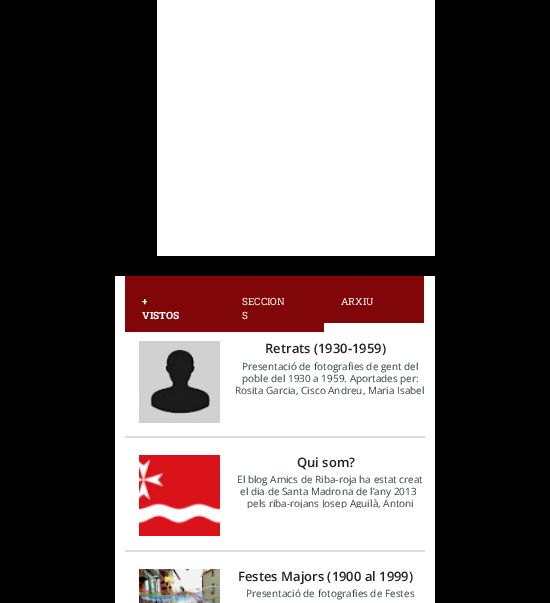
%!PS
<< /PageSize [550 603] >> setpagedevice
/rgb { dup -16 bitshift 255 div exch dup -8 bitshift 255 and 255 div exch 255 and 255 div setrgbcolor } def
/font { [ exch dup neg 0 0 3 -1 roll 0 0 ] selectfont } def
/text { moveto show } def
/picture { 5 dict begin { /h /w /y /x /name } { exch def } forall
  gsave x y translate w h scale
  w h 8 [w 0 0 h 0 0] name (r) file false 3 colorimage grestore end } def
0 603 translate 1 -1 scale
4 setmiterlimit
/s1 { /RobotoSlab-ExtraBold 10 font 16#FFFFFF rgb } def
/s2 { /RobotoSlab-Regular 10 font 16#FFFFFF rgb } def
/s3 { /OpenSans-SemiBold 13 font 16#222222 rgb } def
/s4 { /OpenSans-Regular 10 font 16#374142 rgb } def
16#000000 rgb
0 0 550 603 rectfill
16#FFFFFF rgb
157 0 278 256 rectfill
115 276 320 327 rectfill
16#810608 rgb
125 276 199 56 rectfill
s1
(+) 142 305 text
(VISTOS) 142 319 text
s2
(SECCION) 242 305 text
(S) 242 319 text
16#810608 rgb
324 276 100 47 rectfill
s2
(ARXIU) 341 305 text
16#DDDDDD rgb
125 436 300 2 rectfill
(pic1.raw) 139 341 81 82 picture
s3
(Retrats \(1930-1959\)) 265 353 text
s4
(Presentació de fotografies de gent del) 242 370 text
(poble del 1930 a 1959. Aportades per:) 242 382 text
gsave
235 360 190 35 rectclip
(Rosita Garcia, Cisco Andreu, Maria Isabel) 235 394 text
grestore
16#DDDDDD rgb
125 550 300 2 rectfill
(pic2.raw) 139 455 81 81 picture
s3
(Qui som?) 297 467 text
s4
(El blog Amics de Riba-roja ha estat creat) 237 483 text
(el dia de Santa Madrona de l’any 2013) 240 495 text
gsave
235 473 190 35 rectclip
(pels riba-rojans Josep Aguilà, Antoni) 247 507 text
grestore
(pic3.raw) 139 569 81 34 picture
s3
(Festes Majors \(1900 al 1999\)) 238 581 text
s4
(Presentació de fotografies de Festes) 246 597 text
showpage
